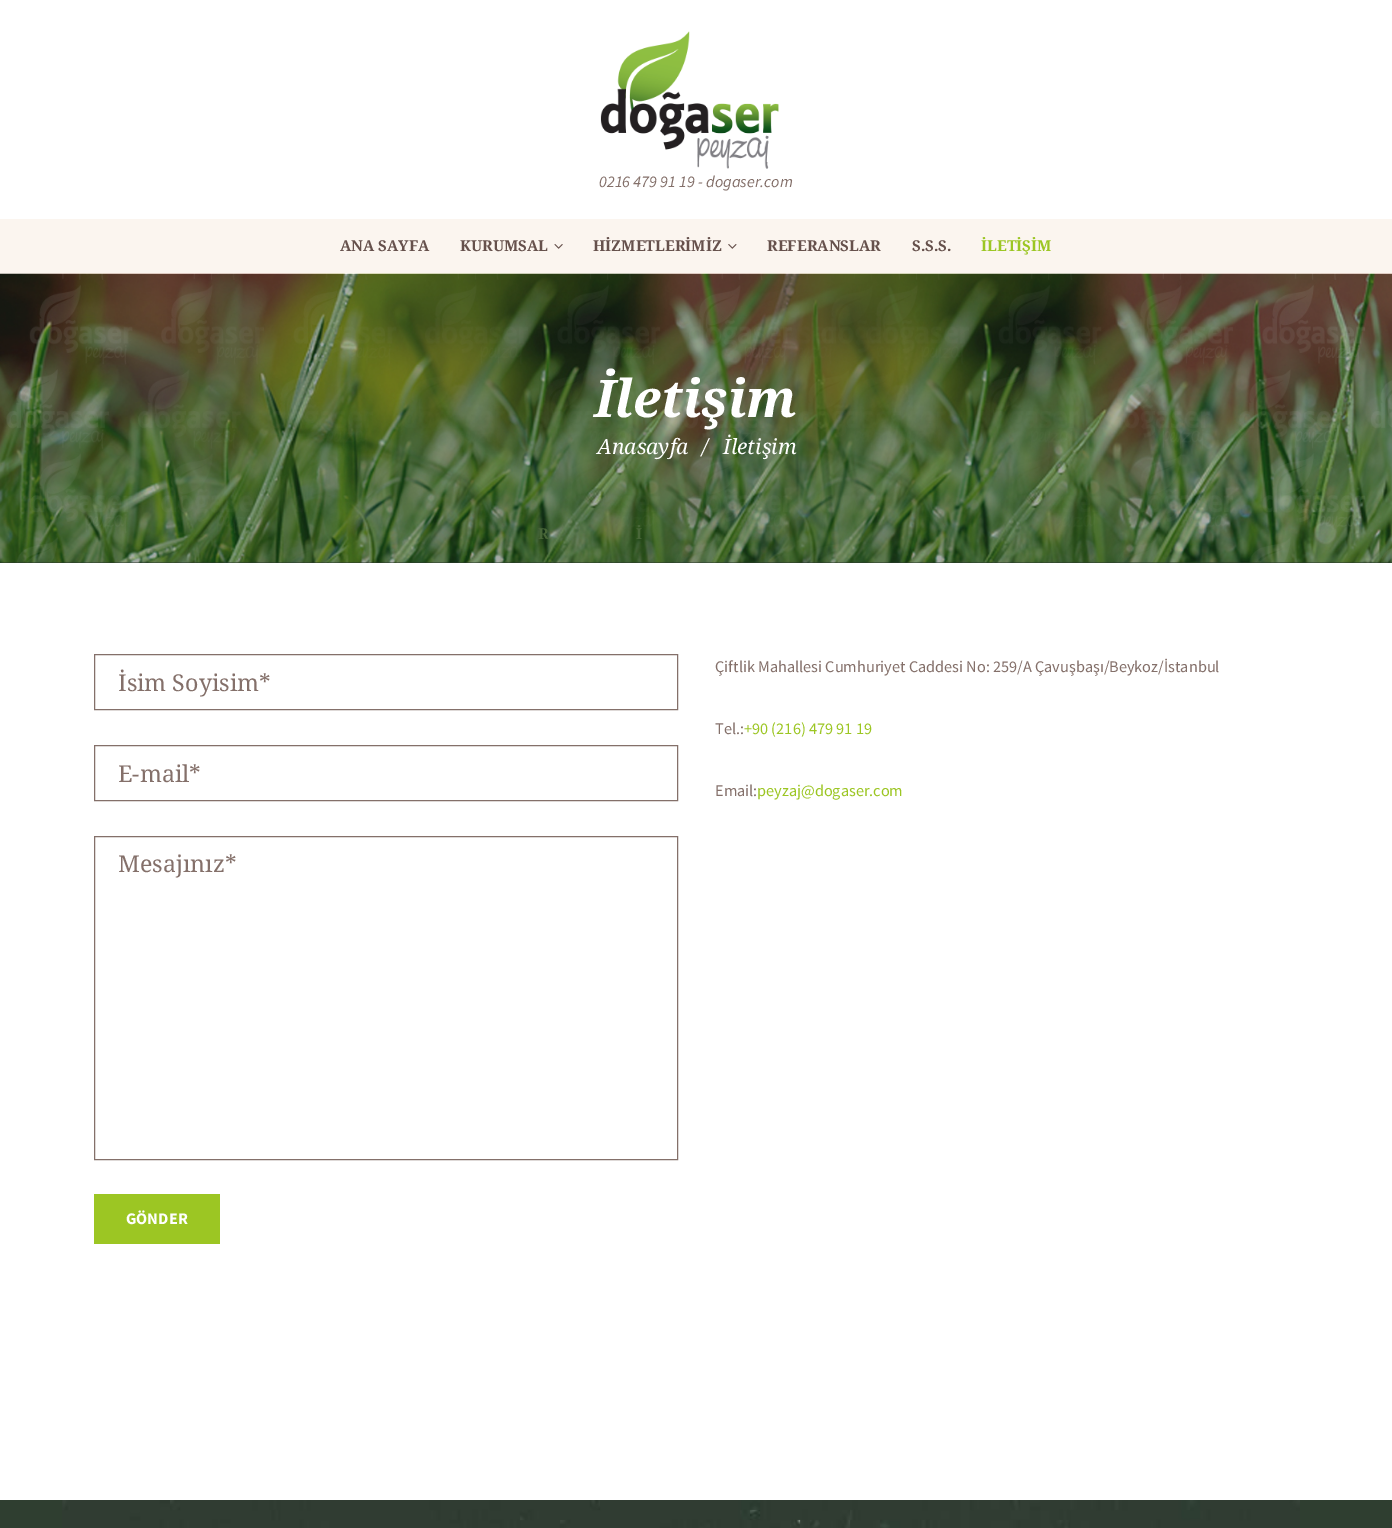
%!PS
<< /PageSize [1392 1528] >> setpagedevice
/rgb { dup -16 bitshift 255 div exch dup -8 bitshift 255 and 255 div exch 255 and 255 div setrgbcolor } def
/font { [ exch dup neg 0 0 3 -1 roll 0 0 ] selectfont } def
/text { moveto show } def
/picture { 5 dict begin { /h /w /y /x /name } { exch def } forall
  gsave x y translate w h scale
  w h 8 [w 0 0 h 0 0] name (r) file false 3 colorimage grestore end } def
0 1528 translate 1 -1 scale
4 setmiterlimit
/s1 { /SourceSansPro-Italic 16.25 font 16#84706A rgb } def
/s2 { /NotoSerif-Bold 15 font 16#66514C rgb } def
/s3 { /NotoSerif-Bold 15 font 16#486638 rgb } def
/s4 { /NotoSerif-Bold 15 font 16#9CC623 rgb } def
/s5 { /NotoSerif-BoldItalic 52 font 16#FFFFFF rgb } def
/s6 { /NotoSerif-Italic 21 font 16#FFFFFF rgb } def
/s7 { /NotoSerif-Regular 23.25 font 16#84706A rgb } def
/s8 { /SourceSansPro-Bold 16.25 font 16#FFFFFF rgb } def
/s9 { /SourceSansPro-Regular 16.25 font 16#84706A rgb } def
/s10 { /SourceSansPro-Regular 16.25 font 16#9CC623 rgb } def
16#FFFFFF rgb
0 0 1392 1528 rectfill
(pic1.raw) 600 31 179 138 picture
s1
(0216 479 91 19 - dogaser.com) 599 187 text
16#FBF5EF rgb
0 219 1392 55 rectfill
s2
(ANA SAYFA) 340 251 text
(KURUMSAL) 460 251 text
(pic2.raw) 554 244 9 5 picture
16#2A382B rgb
0 562 1392 1 rectfill
(pic4.raw) 0 273 1392 290 picture
s3
(R) 538 539 text
(İ) 636 539 text
s2
(HİZMETLERİMİZ) 593 251 text
(pic3.raw) 728 244 9 5 picture
(REFERANSLAR) 767 251 text
(S.S.S.) 912 251 text
s4
(İLETİŞİM) 981 251 text
s5
(İletişim) 594 417 text
s6
(Anasayfa) 597 454 text
(/) 702 454 text
(İletişim) 723 454 text
16#84706A rgb
94.5 654.5 583 55 rectstroke
s7
(İsim Soyisim*) 118 691 text
94.5 745.5 583 55 rectstroke
(E-mail*) 118 782 text
94.5 836.5 583 323 rectstroke
(Mesajınız*) 118 872 text
16#9CC623 rgb
94 1194 126 50 rectfill
s8
(GÖNDER) 126 1224 text
s9
(Çiftlik Mahallesi Cumhuriyet Caddesi No: 259/A Çavuşbaşı/Beykoz/İstanbul) 715 672 text
(Tel.:) 715 734 text
s10
(+90 \(216\) 479 91 19) 744 734 text
s9
(Email:) 715 796 text
s10
(peyzaj@dogaser.com) 757 796 text
16#2F3E30 rgb
0 1500 1392 28 rectfill
(pic5.raw) 62 1500 1238 28 picture
showpage
